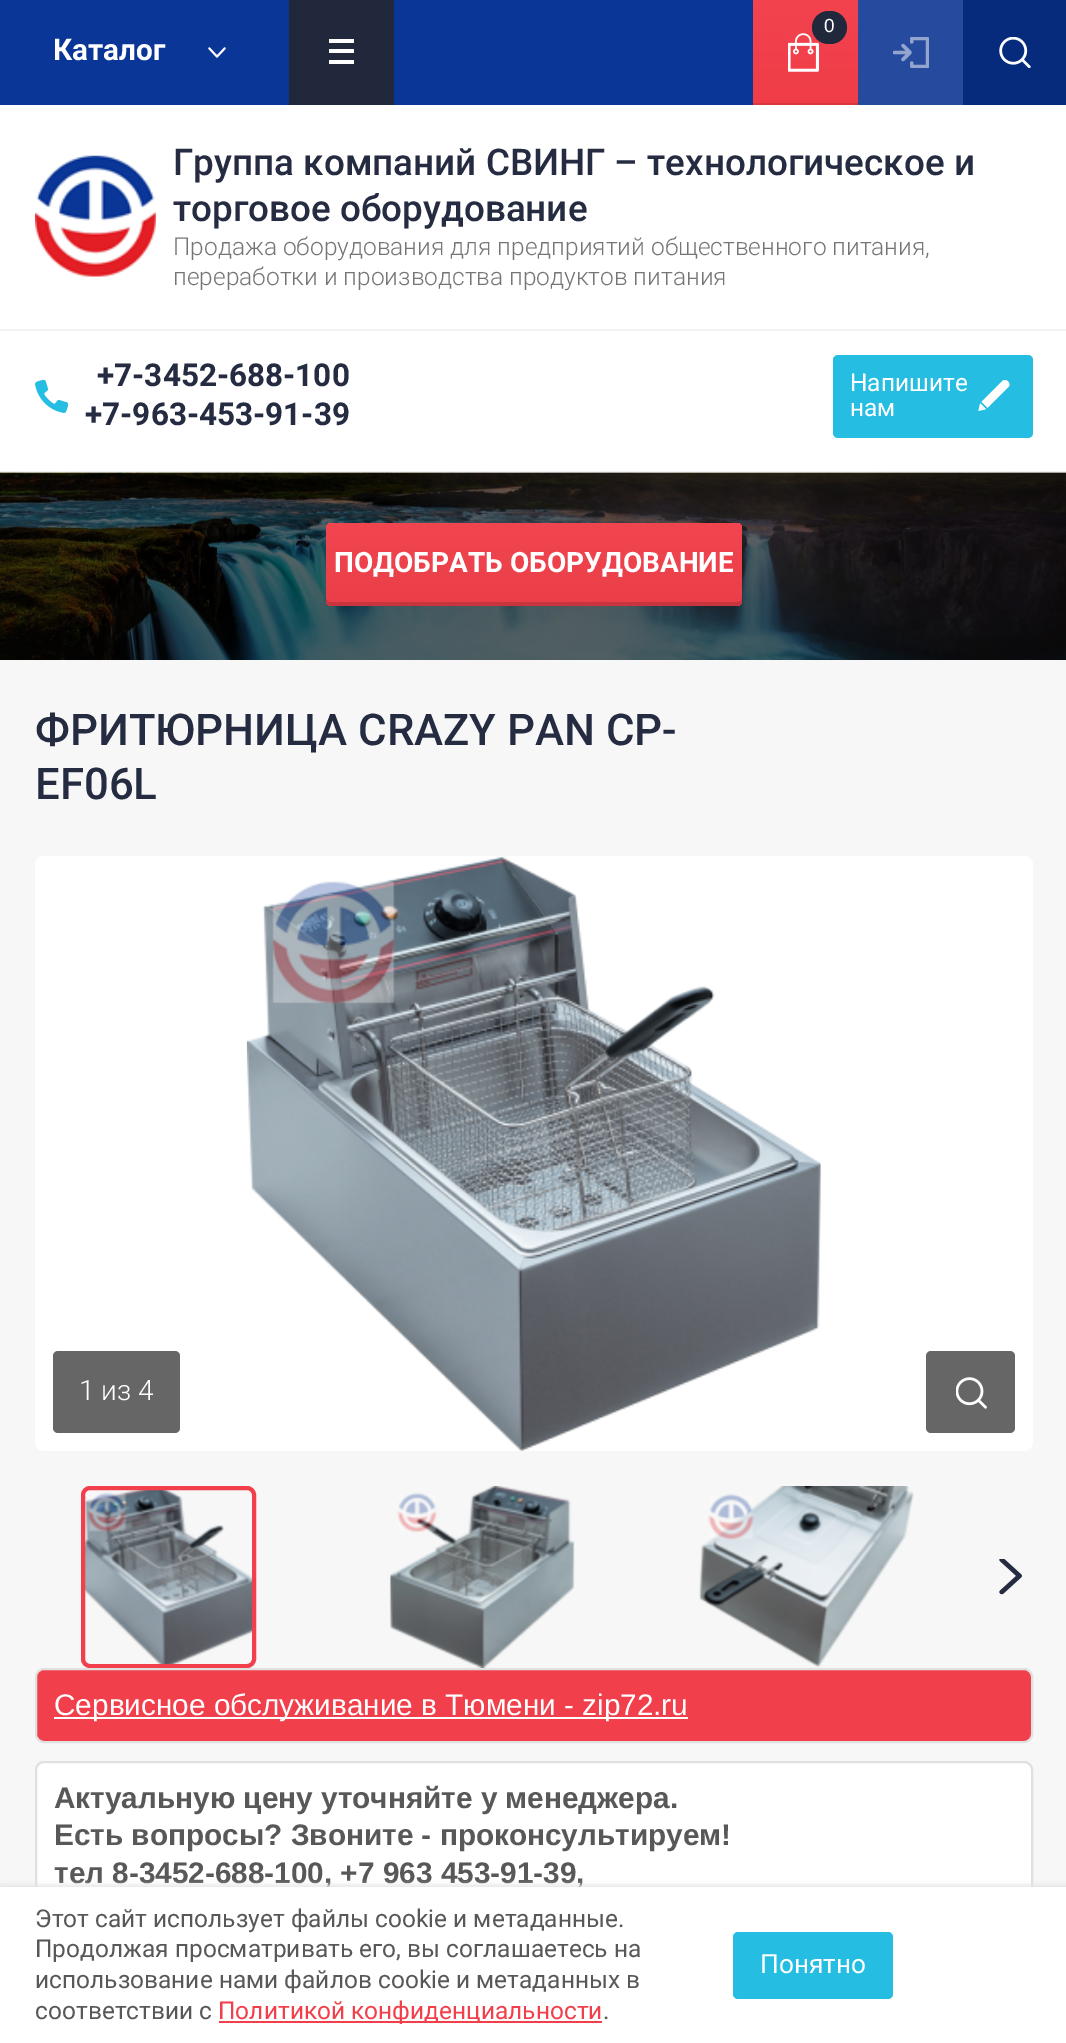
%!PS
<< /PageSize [1066 2043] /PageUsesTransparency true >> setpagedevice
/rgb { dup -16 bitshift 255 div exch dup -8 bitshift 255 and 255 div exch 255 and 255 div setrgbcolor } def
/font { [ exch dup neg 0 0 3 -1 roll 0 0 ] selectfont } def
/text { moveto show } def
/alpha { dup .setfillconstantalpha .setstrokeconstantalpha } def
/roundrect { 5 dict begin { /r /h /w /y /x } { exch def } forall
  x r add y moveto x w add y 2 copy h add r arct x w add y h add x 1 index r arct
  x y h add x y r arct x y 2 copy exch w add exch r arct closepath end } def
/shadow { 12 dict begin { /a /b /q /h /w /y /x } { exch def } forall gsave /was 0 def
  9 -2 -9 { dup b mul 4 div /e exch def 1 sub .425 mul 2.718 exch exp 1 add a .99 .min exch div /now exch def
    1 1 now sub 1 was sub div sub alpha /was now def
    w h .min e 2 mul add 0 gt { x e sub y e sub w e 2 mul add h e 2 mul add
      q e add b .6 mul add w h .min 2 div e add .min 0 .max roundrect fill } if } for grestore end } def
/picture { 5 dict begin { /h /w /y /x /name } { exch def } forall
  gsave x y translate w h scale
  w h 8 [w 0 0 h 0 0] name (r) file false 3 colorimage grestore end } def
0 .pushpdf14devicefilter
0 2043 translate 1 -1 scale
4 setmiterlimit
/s1 { /LiberationSans-Regular 19 font 16#FFFFFF rgb } def
/s2 { /Roboto-Medium 36.75 font 16#252C41 rgb } def
/s3 { /Roboto-Light 24.5 font 16#757575 rgb } def
/s4 { /Roboto-Bold 31.5 font 16#252C41 rgb } def
/s5 { /Roboto-Regular 24.5 font 16#FFFFFF rgb } def
/s6 { /Roboto-Bold 29.75 font 16#FFFFFF rgb } def
/s7 { /Roboto-Bold 28 font 16#FFFFFF rgb } def
/s8 { /Roboto-Medium 43.75 font 16#252C41 rgb } def
/s9 { /Roboto-Light 28 font 16#FFFFFF rgb } def
/s10 { /LiberationSans-Regular 29.75 font 16#FFFFFF rgb } def
/s11 { /LiberationSans-Bold 29.75 font 16#585858 rgb } def
/s12 { /Roboto-Regular 24.5 font 16#585858 rgb } def
/s13 { /Roboto-Regular 24.5 font 16#F1404B rgb } def
/s14 { /Roboto-Regular 26.25 font 16#FFFFFF rgb } def
16#F7F7F7 rgb
0 0 1066 2043 rectfill
16#FFFFFF rgb
0 105 1066 368 rectfill
gsave 753 0 moveto 858 0 lineto 858 103 lineto 753 103 lineto closepath clip newpath
<< /ShadingType 2 /ColorSpace /DeviceRGB /Coords [805 105 805 0] /Extend [true true] /Function << /FunctionType 2 /Domain [0 1] /C0 [0.941 0.239 0.278] /C1 [0.949 0.263 0.31] /N 1 >> >> shfill grestore
16#D83740 rgb
753 103 105 2 rectfill
(pic1.raw) 788 33 31 39 picture
16#21283B rgb
812 11 35 33 16.5 roundrect fill
s1
(0) 824 32 text
(pic2.raw) 35 155 121 122 picture
s2
(Группа компаний СВИНГ – технологическое и) 173 175 text
(торговое оборудование) 173 221 text
s3
(Продажа оборудования для предприятий общественного питания,) 173 255 text
(переработки и производства продуктов питания) 173 285 text
16#F2F2F2 rgb
0 329 1066 2 rectfill
(pic3.raw) 35 380 33 33 picture
s4
(+7-3452-688-100) 97 386 text
(+7-963-453-91-39) 85 425 text
16#26BDE2 rgb
833 355 200 83 5 roundrect fill
s5
(Напишите) 850 391 text
(нам) 850 416 text
(pic4.raw) 978 380 32 31 picture
16#0A3697 rgb
0 0 753 105 rectfill
s6
(Каталог) 53 60 text
(pic5.raw) 208 47 18 11 picture
16#21283B rgb
289 0 105 105 rectfill
16#FFFFFF rgb
329 39 25 4 rectfill
329 49 25 4 rectfill
329 60 25 4 rectfill
16#264B9E rgb
858 0 105 105 rectfill
(pic6.raw) 893 37 36 31 picture
16#062B7D rgb
963 0 103 105 rectfill
(pic7.raw) 999 37 32 31 picture
(pic8.raw) 0 471 1066 189 picture
gsave 326 523 416 83 5 roundrect clip newpath
<< /ShadingType 2 /ColorSpace /DeviceRGB /Coords [534 606 534 523] /Extend [true true] /Function << /FunctionType 2 /Domain [0 1] /C0 [0.918 0.243 0.286] /C1 [0.945 0.275 0.314] /N 1 >> >> shfill grestore
0.14 alpha
16#000000 rgb
326 597 moveto 326 601 lineto 326 604 328 606 331 606 curveto 737 606 lineto 740 606 742 604 742 601 curveto 742 597 lineto 742 600 740 602 737 602 curveto 331 602 lineto 328 602 326 600 326 597 curveto closepath fill
1 alpha
s7
(ПОДОБРАТЬ ОБОРУДОВАНИЕ) 334 572 text
s8
(ФРИТЮРНИЦА CRAZY PAN CP-) 35 745 text
(EF06L) 35 799 text
16#FFFFFF rgb
35 856 998 595 9 roundrect fill
16#666666 rgb
53 1351 127 82 5 roundrect fill
s9
(1 из 4) 79 1400 text
(pic9.raw) 246 856 575 595 picture
16#666666 rgb
926 1351 89 82 5 roundrect fill
(pic10.raw) 956 1377 31 32 picture
(pic11.raw) 85 1490 167 174 picture
16#F1404B rgb
4 setlinewidth
83 1488 171 178 7 roundrect stroke
(pic12.raw) 389 1486 186 182 picture
(pic13.raw) 699 1486 215 181 picture
(pic14.raw) 999 1559 23 36 picture
36 1669 996 73 8 roundrect gsave fill grestore
16#E0E0E0 rgb
2 setlinewidth
stroke
16#FFFFFF rgb
54 1717 634 2 rectfill
s10
(Сервисное обслуживание в Тюмени - zip72.ru) 54 1715 text
36 1762 996 185 8 roundrect gsave fill grestore
16#E0E0E0 rgb
stroke
s11
(Актуальную цену уточняйте у менеджера.) 54 1808 text
(Есть вопросы? Звоните - проконсультируем!) 54 1845 text
(тел 8-3452-688-100, +7 963 453-91-39,) 54 1883 text
16#E6E5E5 rgb
0 1885 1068 157 0 2.5 1 shadow
16#FFFFFF rgb
0 1887 1066 156 rectfill
s12
(Этот сайт использует файлы cookie и метаданные.) 35 1927 text
(Продолжая просматривать его, вы соглашаетесь на) 35 1957 text
(использование нами файлов cookie и метаданных в) 35 1988 text
(соответствии с) 35 2019 text
16#F1404B rgb
219 2021 383 2 rectfill
(Политикой конфиденциальности) 218 2019 text
s12
(.) 603 2019 text
16#26BDE2 rgb
733 1932 160 67 5 roundrect fill
s14
(Понятно) 760 1973 text
.poppdf14devicefilter showpage
